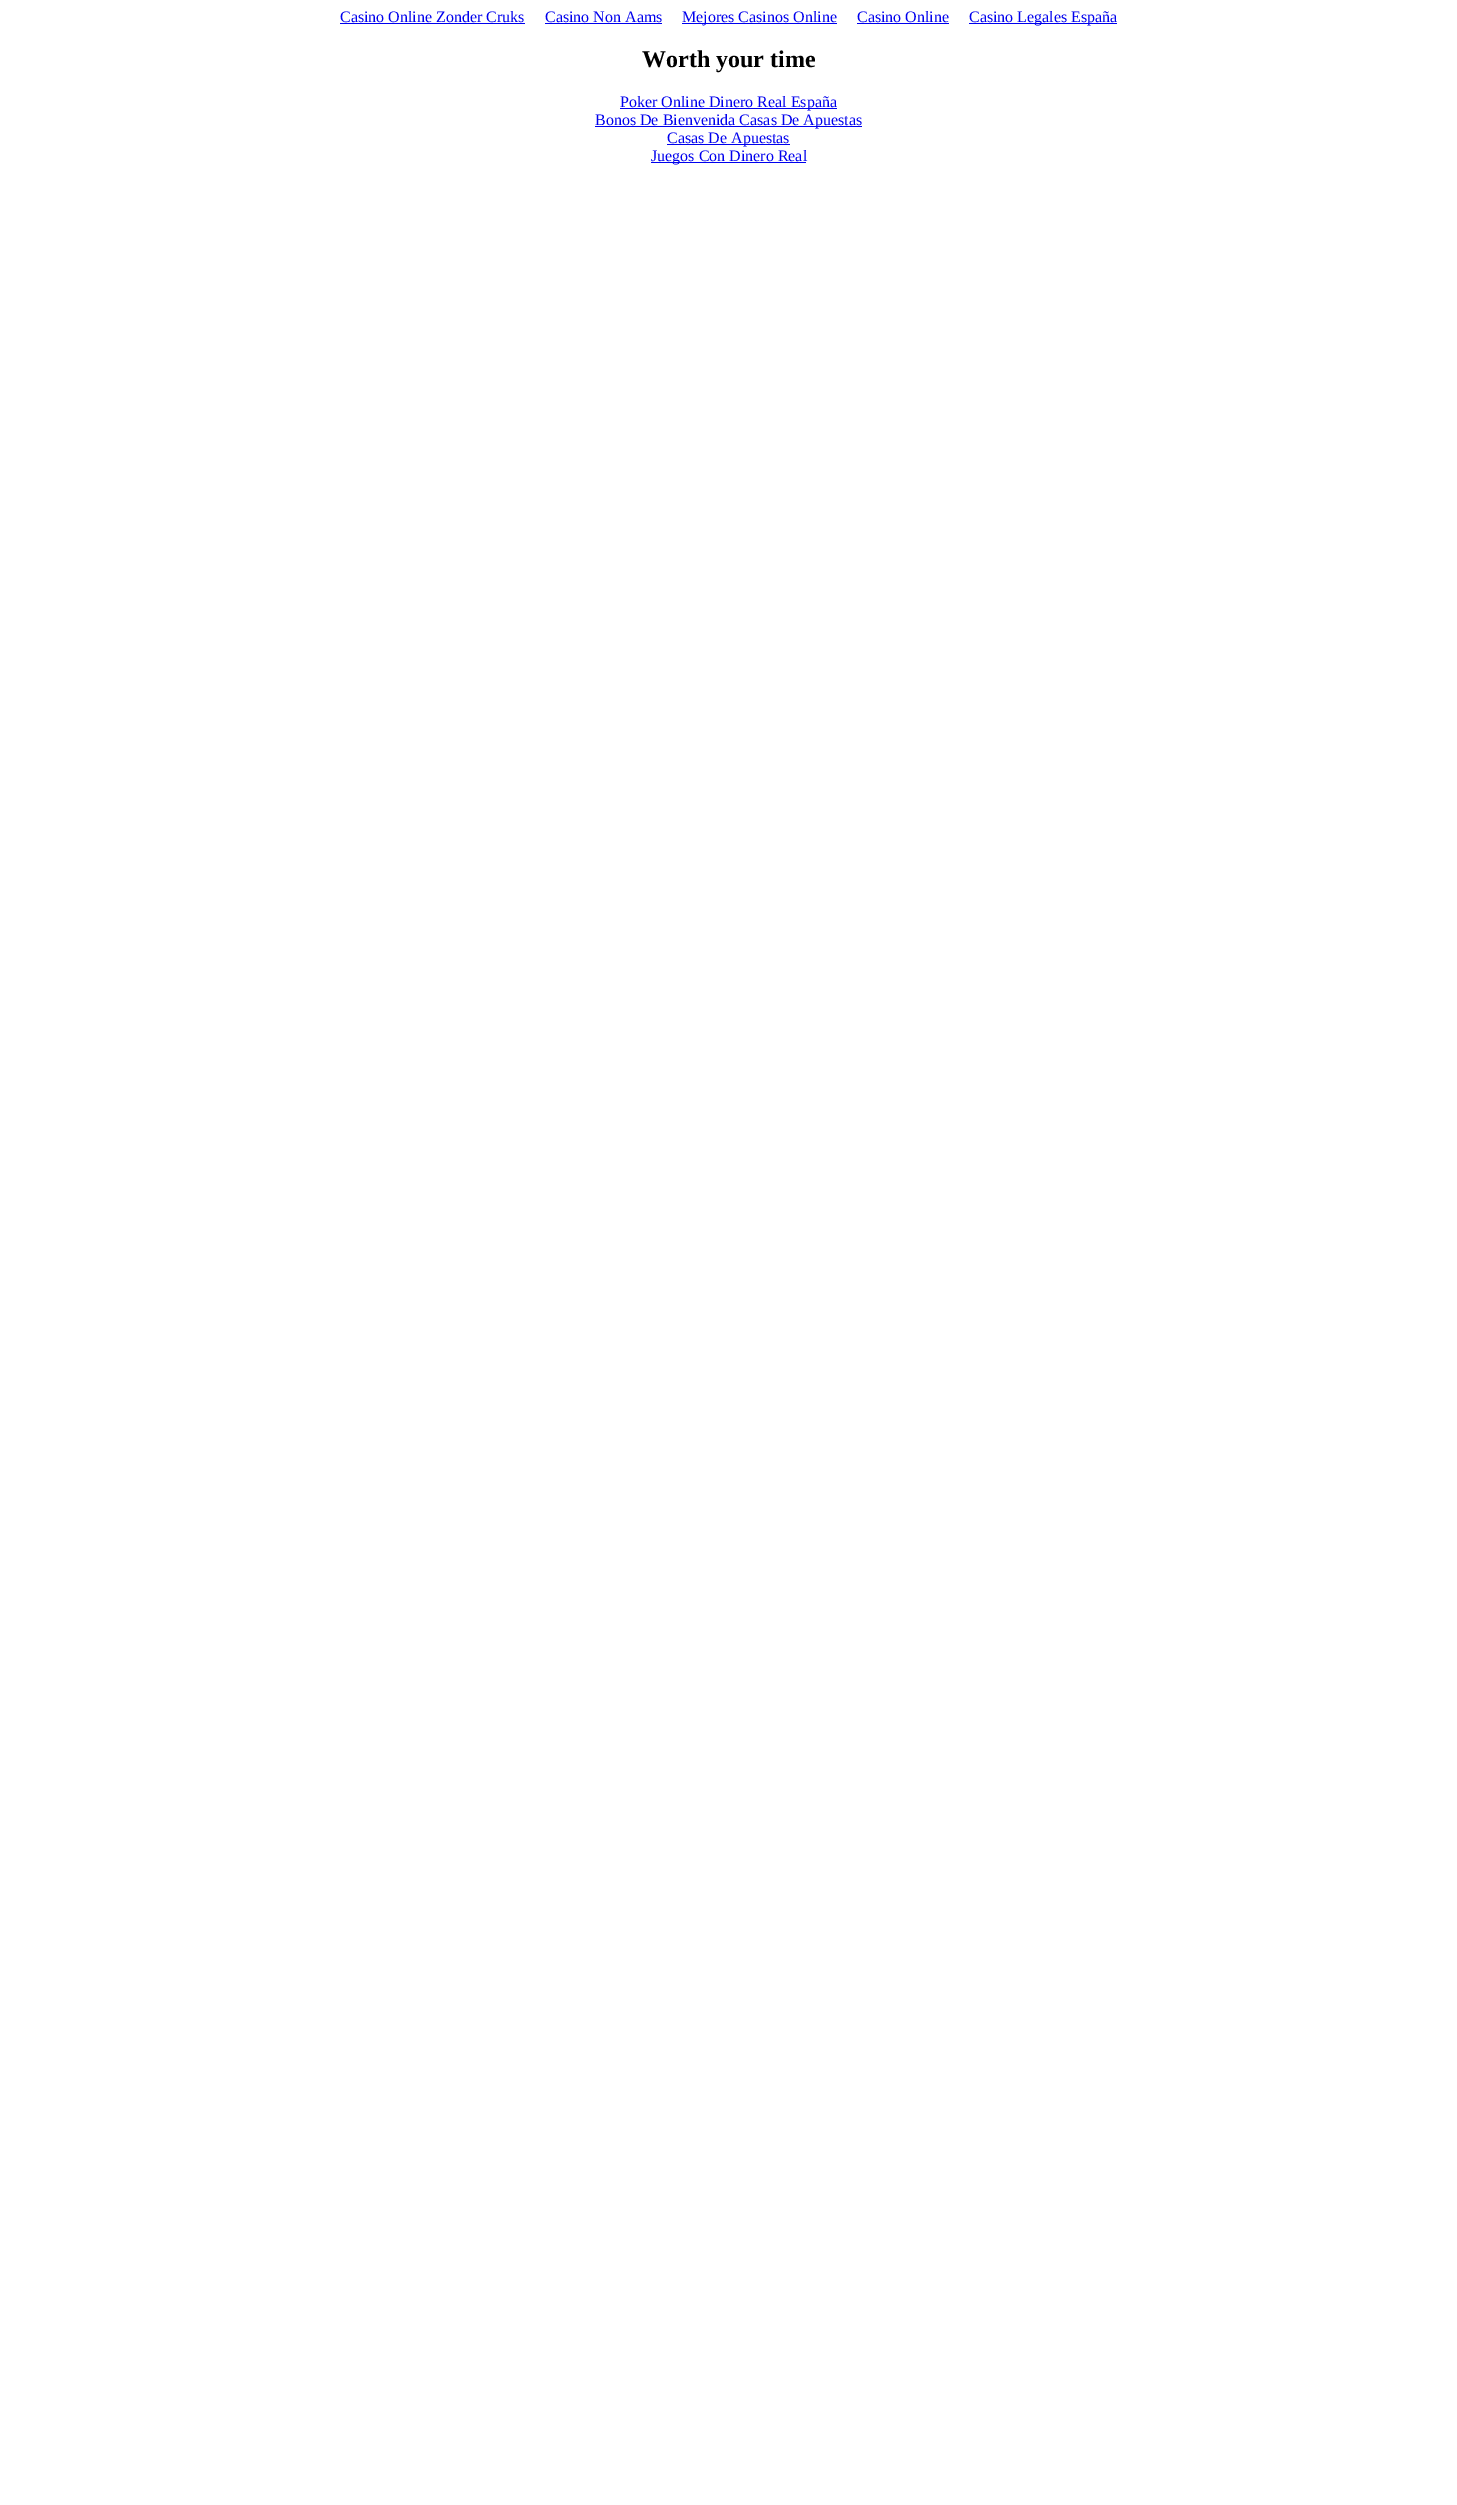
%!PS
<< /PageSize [1457 2505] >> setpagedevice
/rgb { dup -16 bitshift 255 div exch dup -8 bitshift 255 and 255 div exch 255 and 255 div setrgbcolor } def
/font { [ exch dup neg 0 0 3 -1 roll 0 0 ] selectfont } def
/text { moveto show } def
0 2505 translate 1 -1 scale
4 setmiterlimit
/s1 { /LiberationSerif-Regular 16 font 16#0000EE rgb } def
/s2 { /LiberationSerif-Bold 24 font 16#000000 rgb } def
16#FFFFFF rgb
0 0 1457 2505 rectfill
s1
(Casino Online Zonder Cruks) 340 22 text
340 23 185 1 rectfill
(Casino Non Aams) 545 22 text
545 23 117 1 rectfill
682 23 155 1 rectfill
(Mejores Casinos Online) 682 22 text
(Casino Online) 857 22 text
857 23 92 1 rectfill
969 23 148 1 rectfill
(Casino Legales España) 969 22 text
s2
(Worth your time) 642 67 text
16#0000EE rgb
620 108 217 1 rectfill
s1
(Poker Online Dinero Real España) 620 107 text
595 126 267 1 rectfill
(Bonos De Bienvenida Casas De Apuestas) 595 125 text
667 144 123 1 rectfill
(Casas De Apuestas) 667 143 text
651 162 155 1 rectfill
(Juegos Con Dinero Real) 651 161 text
showpage
